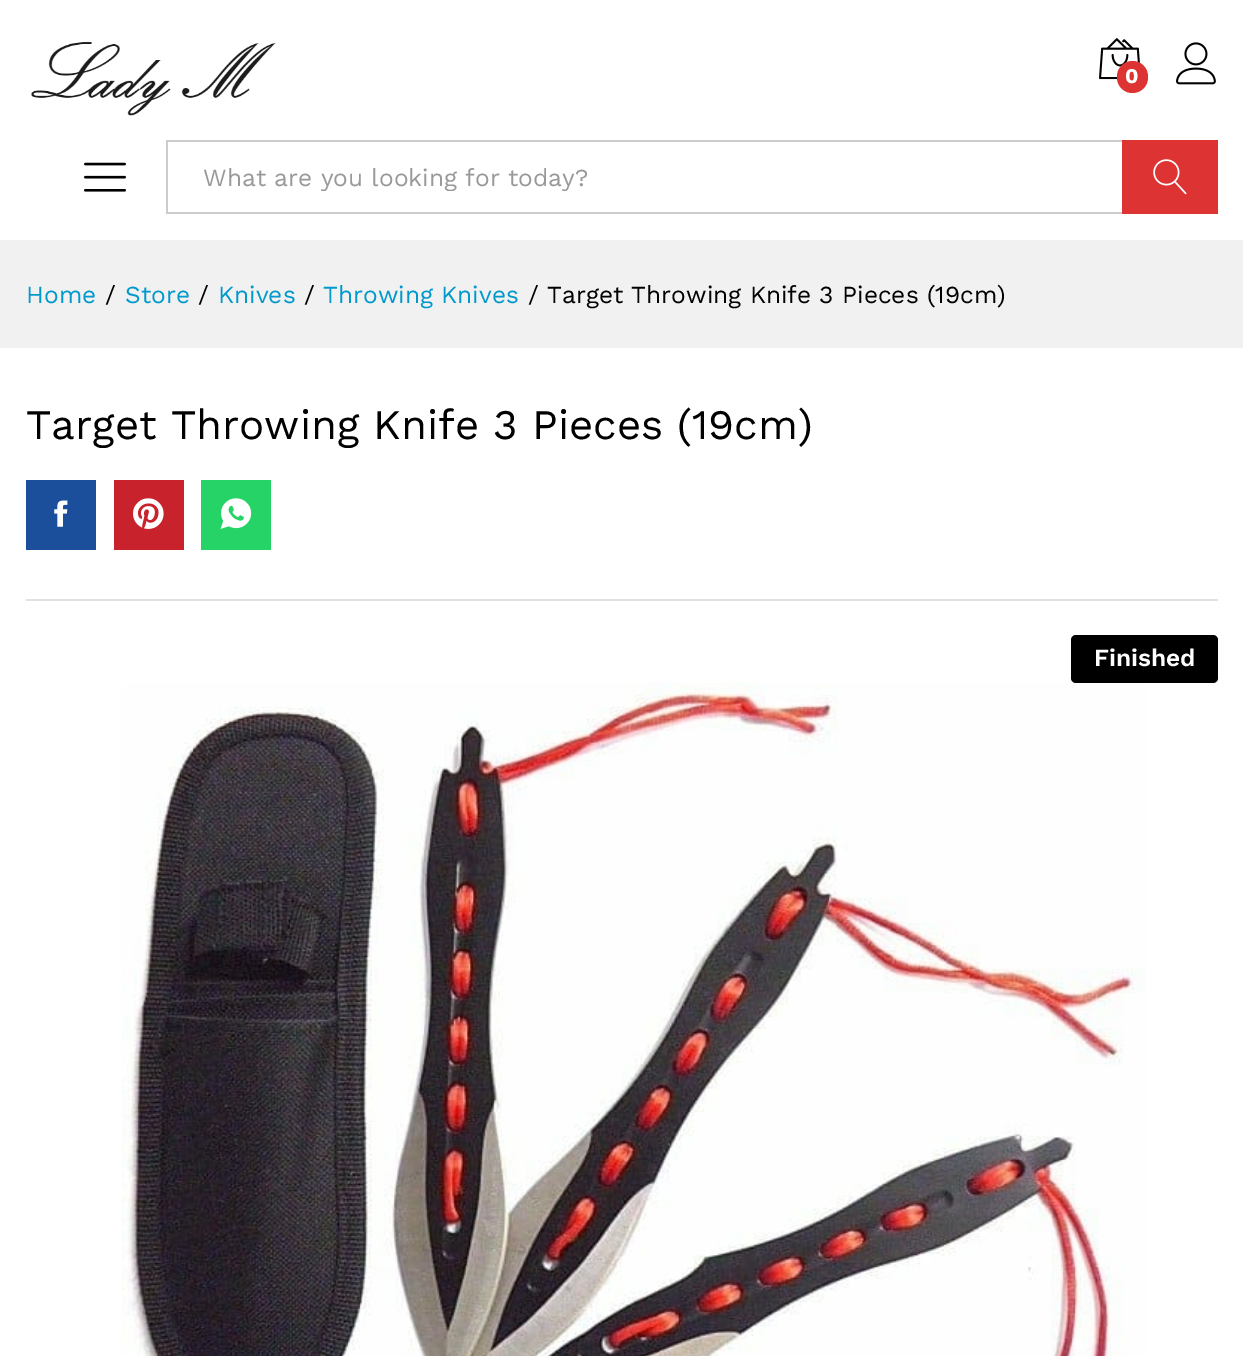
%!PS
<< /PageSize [1243 1356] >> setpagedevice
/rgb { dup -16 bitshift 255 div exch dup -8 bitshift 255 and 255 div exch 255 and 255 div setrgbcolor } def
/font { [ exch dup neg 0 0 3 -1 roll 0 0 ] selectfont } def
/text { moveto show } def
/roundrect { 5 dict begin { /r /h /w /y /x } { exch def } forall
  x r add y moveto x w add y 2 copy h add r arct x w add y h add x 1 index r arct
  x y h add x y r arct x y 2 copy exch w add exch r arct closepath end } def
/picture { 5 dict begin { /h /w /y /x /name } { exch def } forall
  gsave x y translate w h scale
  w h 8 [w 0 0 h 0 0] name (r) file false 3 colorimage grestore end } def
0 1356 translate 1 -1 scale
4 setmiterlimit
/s1 { /WorkSans-Bold 21 font 16#FFFFFF rgb } def
/s2 { /WorkSans-Regular 24.5 font 16#999999 rgb } def
/s3 { /WorkSans-Regular 24.5 font 16#0099CC rgb } def
/s4 { /WorkSans-Regular 24.5 font 16#000000 rgb } def
/s5 { /WorkSans-Regular 42 font 16#000000 rgb } def
/s6 { /WorkSans-SemiBold 24.5 font 16#FFFFFF rgb } def
16#FFFFFF rgb
0 0 1243 1356 rectfill
(pic1.raw) 31 42 245 74 picture
(pic2.raw) 1099 38 41 42 picture
16#DD3333 rgb
1117 61 31 32 15.5 roundrect fill
s1
(0) 1125 83 text
(pic3.raw) 1176 42 40 43 picture
(pic4.raw) 84 162 42 30 picture
16#CCCCCC rgb
166 140 956 2 rectfill
166 212 956 2 rectfill
166 140 2 74 rectfill
gsave
203 163 884 28 rectclip
s2
(What are you looking for today?) 203 186 text
grestore
16#DD3333 rgb
1122 140 96 74 rectfill
(pic5.raw) 1153 159 34 36 picture
16#F1F1F1 rgb
0 240 1243 108 rectfill
s3
(Home) 26 303 text
s4
(/) 105 303 text
s3
(Store) 125 303 text
s4
(/) 198 303 text
s3
(Knives) 218 303 text
s4
(/) 304 303 text
s3
(Throwing Knives) 323 303 text
s4
(/) 528 303 text
(Target Throwing Knife 3 Pieces \(19cm\)) 547 303 text
16#E1E1E1 rgb
26 599 1192 2 rectfill
s5
(Target Throwing Knife 3 Pieces \(19cm\)) 26 439 text
16#1B4E9B rgb
26 480 70 70 rectfill
(pic6.raw) 54 500 14 27 picture
16#C8232C rgb
114 480 70 70 rectfill
(pic7.raw) 133 498 31 31 picture
16#25D366 rgb
201 480 70 70 rectfill
(pic8.raw) 220 498 32 31 picture
16#000000 rgb
1071 635 147 48 5 roundrect fill
s6
(Finished) 1094 666 text
(pic9.raw) 121 683 1025 673 picture
showpage
